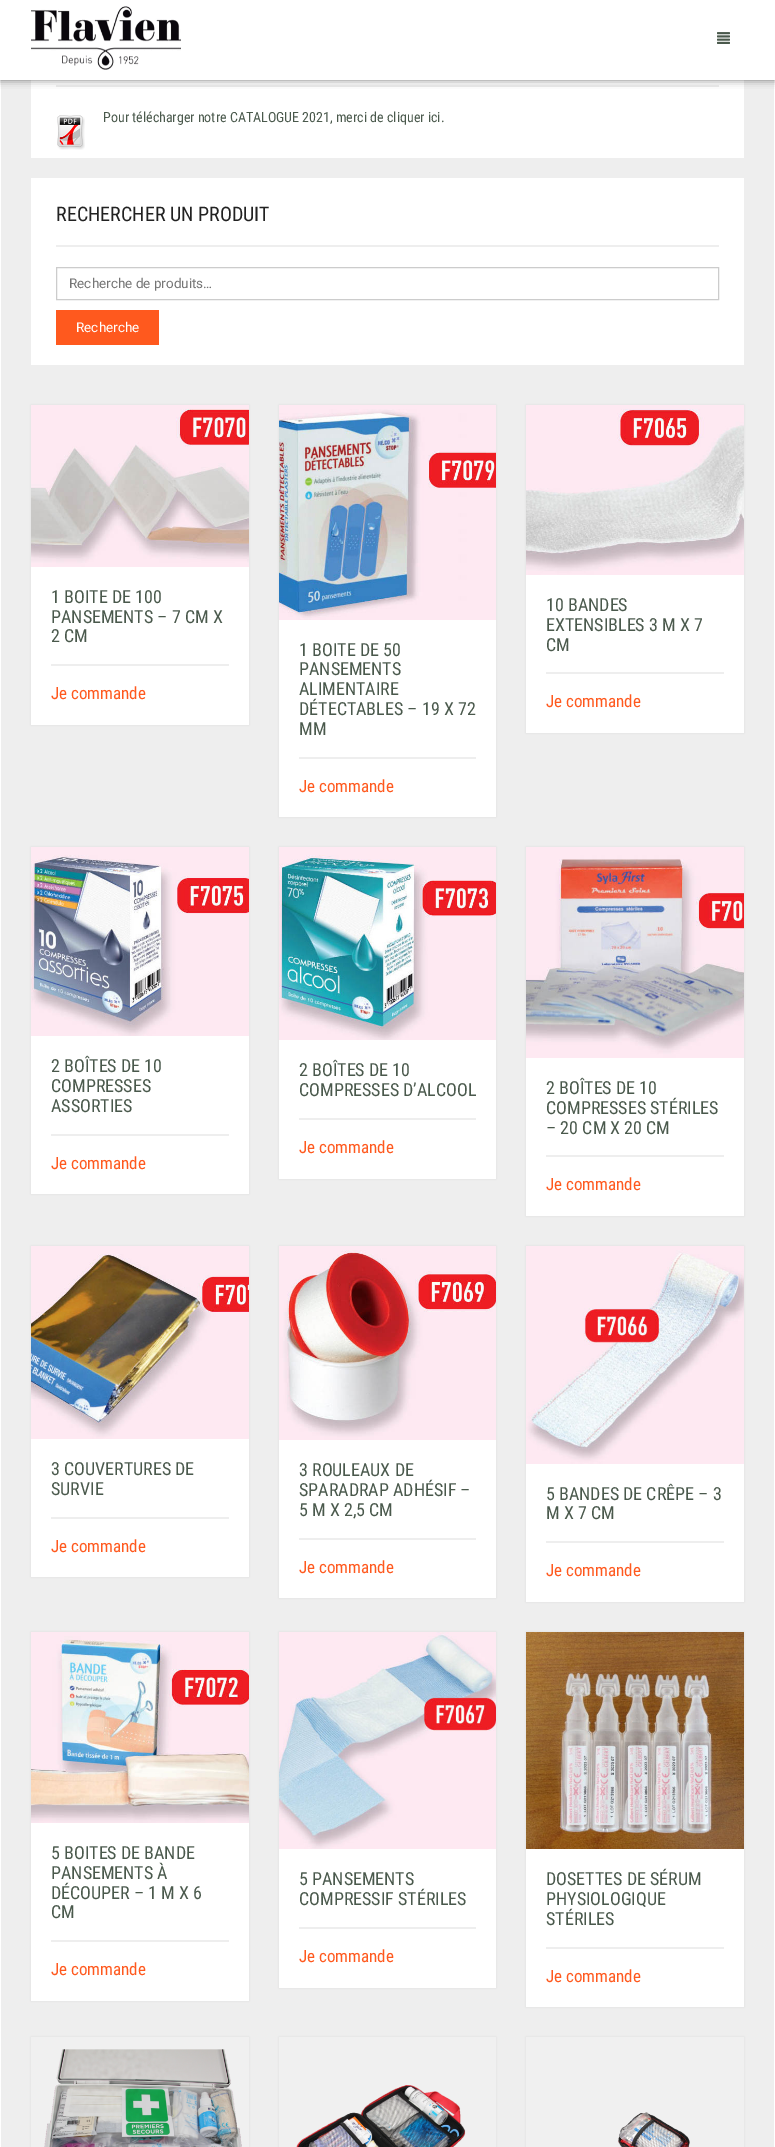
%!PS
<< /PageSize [775 2147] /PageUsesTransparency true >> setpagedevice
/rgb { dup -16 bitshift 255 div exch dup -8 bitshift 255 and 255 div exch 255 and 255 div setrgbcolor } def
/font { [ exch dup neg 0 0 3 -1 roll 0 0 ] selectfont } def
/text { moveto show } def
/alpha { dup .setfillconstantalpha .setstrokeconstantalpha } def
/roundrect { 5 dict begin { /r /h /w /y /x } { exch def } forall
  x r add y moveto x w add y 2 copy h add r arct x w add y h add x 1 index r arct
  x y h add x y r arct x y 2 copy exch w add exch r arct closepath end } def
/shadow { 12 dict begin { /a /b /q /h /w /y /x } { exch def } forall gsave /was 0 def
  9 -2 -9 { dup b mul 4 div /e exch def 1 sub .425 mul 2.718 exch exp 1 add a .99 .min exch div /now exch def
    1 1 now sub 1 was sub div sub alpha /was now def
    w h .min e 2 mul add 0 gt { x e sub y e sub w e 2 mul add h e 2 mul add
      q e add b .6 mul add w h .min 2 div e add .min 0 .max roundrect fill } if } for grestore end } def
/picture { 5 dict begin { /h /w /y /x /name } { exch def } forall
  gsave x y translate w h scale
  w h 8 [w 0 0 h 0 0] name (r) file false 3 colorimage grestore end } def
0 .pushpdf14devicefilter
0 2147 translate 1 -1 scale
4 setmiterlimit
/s1 { /RobotoCondensed-Regular 14 font 16#4A594C rgb } def
/s2 { /RobotoCondensed-Regular 20 font 16#222222 rgb } def
/s3 { /Roboto-Regular 13.5 font 16#757575 rgb } def
/s4 { /Roboto-Regular 13.5 font 16#FFFFFF rgb } def
/s5 { /RobotoCondensed-Regular 18 font 16#4A594C rgb } def
/s6 { /RobotoCondensed-Regular 17 font 16#FF591E rgb } def
16#EEEEEE rgb
0 0 775 2147 rectfill
16#FFFFFF rgb
774 80 1 2067 rectfill
0 80 1 2067 rectfill
31 80 713 78 rectfill
16#EEEEEE rgb
56 85 663 2 rectfill
16#000000 rgb
0 0 775 80 0 4 0.5 shadow
16#FFFFFF rgb
0 0 775 80 rectfill
(pic1.raw) 31 6 150 64 picture
(pic2.raw) 717 32 13 12 picture
(pic3.raw) 57 115 28 35 picture
s1
(Pour télécharger notre CATALOGUE 2021, merci de cliquer ici.) 103 122 text
16#FFFFFF rgb
31 178 713 187 rectfill
16#EEEEEE rgb
56 245 663 2 rectfill
s2
(RECHERCHER UN PRODUIT) 56 221 text
16#CCCCCC rgb
56.5 267.5 662 32 rectstroke
s3
(Recherche de produits…) 69 288 text
16#FF591E rgb
56 310 103 35 rectfill
s4
(Recherche) 76 332 text
16#CCCCCC rgb
31 405 218 320 0 1 0.5 shadow
16#FFFFFF rgb
31 567 218 158 rectfill
(pic4.raw) 31 405 218 162 picture
s5
(1 BOITE DE 100) 51 603 text
(PANSEMENTS – 7 CM X) 51 623 text
(2 CM) 51 642 text
16#EEEEEE rgb
51 664 178 2 rectfill
s6
(Je commande) 51 699 text
16#CCCCCC rgb
279 405 217 412 0 1 0.5 shadow
16#FFFFFF rgb
279 620 217 197 rectfill
(pic5.raw) 279 405 217 215 picture
s5
(1 BOITE DE 50) 299 656 text
(PANSEMENTS) 299 675 text
(ALIMENTAIRE) 299 695 text
(DÉTECTABLES – 19 X 72) 299 715 text
(MM) 299 735 text
16#EEEEEE rgb
299 757 177 2 rectfill
s6
(Je commande) 299 792 text
16#CCCCCC rgb
526 405 218 328 0 1 0.5 shadow
16#FFFFFF rgb
526 575 218 158 rectfill
(pic6.raw) 526 405 218 170 picture
s5
(10 BANDES) 546 611 text
(EXTENSIBLES 3 M X 7) 546 631 text
(CM) 546 651 text
16#EEEEEE rgb
546 672 178 2 rectfill
s6
(Je commande) 546 707 text
16#CCCCCC rgb
31 847 218 347 0 1 0.5 shadow
16#FFFFFF rgb
31 1036 218 158 rectfill
(pic7.raw) 31 847 218 189 picture
s5
(2 BOÎTES DE 10) 51 1072 text
(COMPRESSES) 51 1092 text
(ASSORTIES) 51 1112 text
16#EEEEEE rgb
51 1134 178 2 rectfill
s6
(Je commande) 51 1169 text
16#CCCCCC rgb
279 847 217 332 0 1 0.5 shadow
16#FFFFFF rgb
279 1040 217 139 rectfill
(pic8.raw) 279 847 217 193 picture
s5
(2 BOÎTES DE 10) 299 1076 text
(COMPRESSES D’ALCOOL) 299 1096 text
16#EEEEEE rgb
299 1118 177 2 rectfill
s6
(Je commande) 299 1153 text
16#CCCCCC rgb
526 847 218 369 0 1 0.5 shadow
16#FFFFFF rgb
526 1058 218 158 rectfill
(pic9.raw) 526 847 218 211 picture
s5
(2 BOÎTES DE 10) 546 1094 text
(COMPRESSES STÉRILES) 546 1114 text
(– 20 CM X 20 CM) 546 1134 text
16#EEEEEE rgb
546 1155 178 2 rectfill
s6
(Je commande) 546 1190 text
16#CCCCCC rgb
31 1246 218 331 0 1 0.5 shadow
16#FFFFFF rgb
31 1439 218 138 rectfill
(pic10.raw) 31 1246 218 193 picture
s5
(3 COUVERTURES DE) 51 1475 text
(SURVIE) 51 1495 text
16#EEEEEE rgb
51 1517 178 2 rectfill
s6
(Je commande) 51 1552 text
16#CCCCCC rgb
279 1246 217 352 0 1 0.5 shadow
16#FFFFFF rgb
279 1440 217 158 rectfill
(pic11.raw) 279 1246 217 194 picture
s5
(3 ROULEAUX DE) 299 1476 text
(SPARADRAP ADHÉSIF –) 299 1496 text
(5 M X 2,5 CM) 299 1516 text
16#EEEEEE rgb
299 1538 177 2 rectfill
s6
(Je commande) 299 1573 text
16#CCCCCC rgb
526 1246 218 356 0 1 0.5 shadow
16#FFFFFF rgb
526 1464 218 138 rectfill
(pic12.raw) 526 1246 218 218 picture
s5
(5 BANDES DE CRÊPE – 3) 546 1500 text
(M X 7 CM) 546 1519 text
16#EEEEEE rgb
546 1541 178 2 rectfill
s6
(Je commande) 546 1576 text
16#CCCCCC rgb
31 1632 218 369 0 1 0.5 shadow
16#FFFFFF rgb
31 1823 218 178 rectfill
(pic13.raw) 31 1632 218 191 picture
s5
(5 BOITES DE BANDE) 51 1859 text
(PANSEMENTS À) 51 1879 text
(DÉCOUPER – 1 M X 6) 51 1899 text
(CM) 51 1918 text
16#EEEEEE rgb
51 1940 178 2 rectfill
s6
(Je commande) 51 1975 text
16#CCCCCC rgb
279 1632 217 356 0 1 0.5 shadow
16#FFFFFF rgb
279 1849 217 139 rectfill
(pic14.raw) 279 1632 217 217 picture
s5
(5 PANSEMENTS) 299 1885 text
(COMPRESSIF STÉRILES) 299 1905 text
16#EEEEEE rgb
299 1927 177 2 rectfill
s6
(Je commande) 299 1962 text
16#CCCCCC rgb
526 1632 218 375 0 1 0.5 shadow
16#FFFFFF rgb
526 1849 218 158 rectfill
(pic15.raw) 526 1632 218 217 picture
s5
(DOSETTES DE SÉRUM) 546 1885 text
(PHYSIOLOGIQUE) 546 1905 text
(STÉRILES) 546 1925 text
16#EEEEEE rgb
546 1947 178 2 rectfill
s6
(Je commande) 546 1982 text
16#CCCCCC rgb
31 2037 218 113 0 1 0.5 shadow
16#F0F0F0 rgb
31 2037 218 110 rectfill
(pic16.raw) 44 2049 198 98 picture
16#CCCCCC rgb
279 2037 217 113 0 1 0.5 shadow
16#F0F0F0 rgb
279 2037 217 110 rectfill
(pic17.raw) 296 2085 170 62 picture
16#CCCCCC rgb
526 2037 218 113 0 1 0.5 shadow
16#F0F0F0 rgb
526 2037 218 110 rectfill
(pic18.raw) 618 2112 72 35 picture
.poppdf14devicefilter showpage
